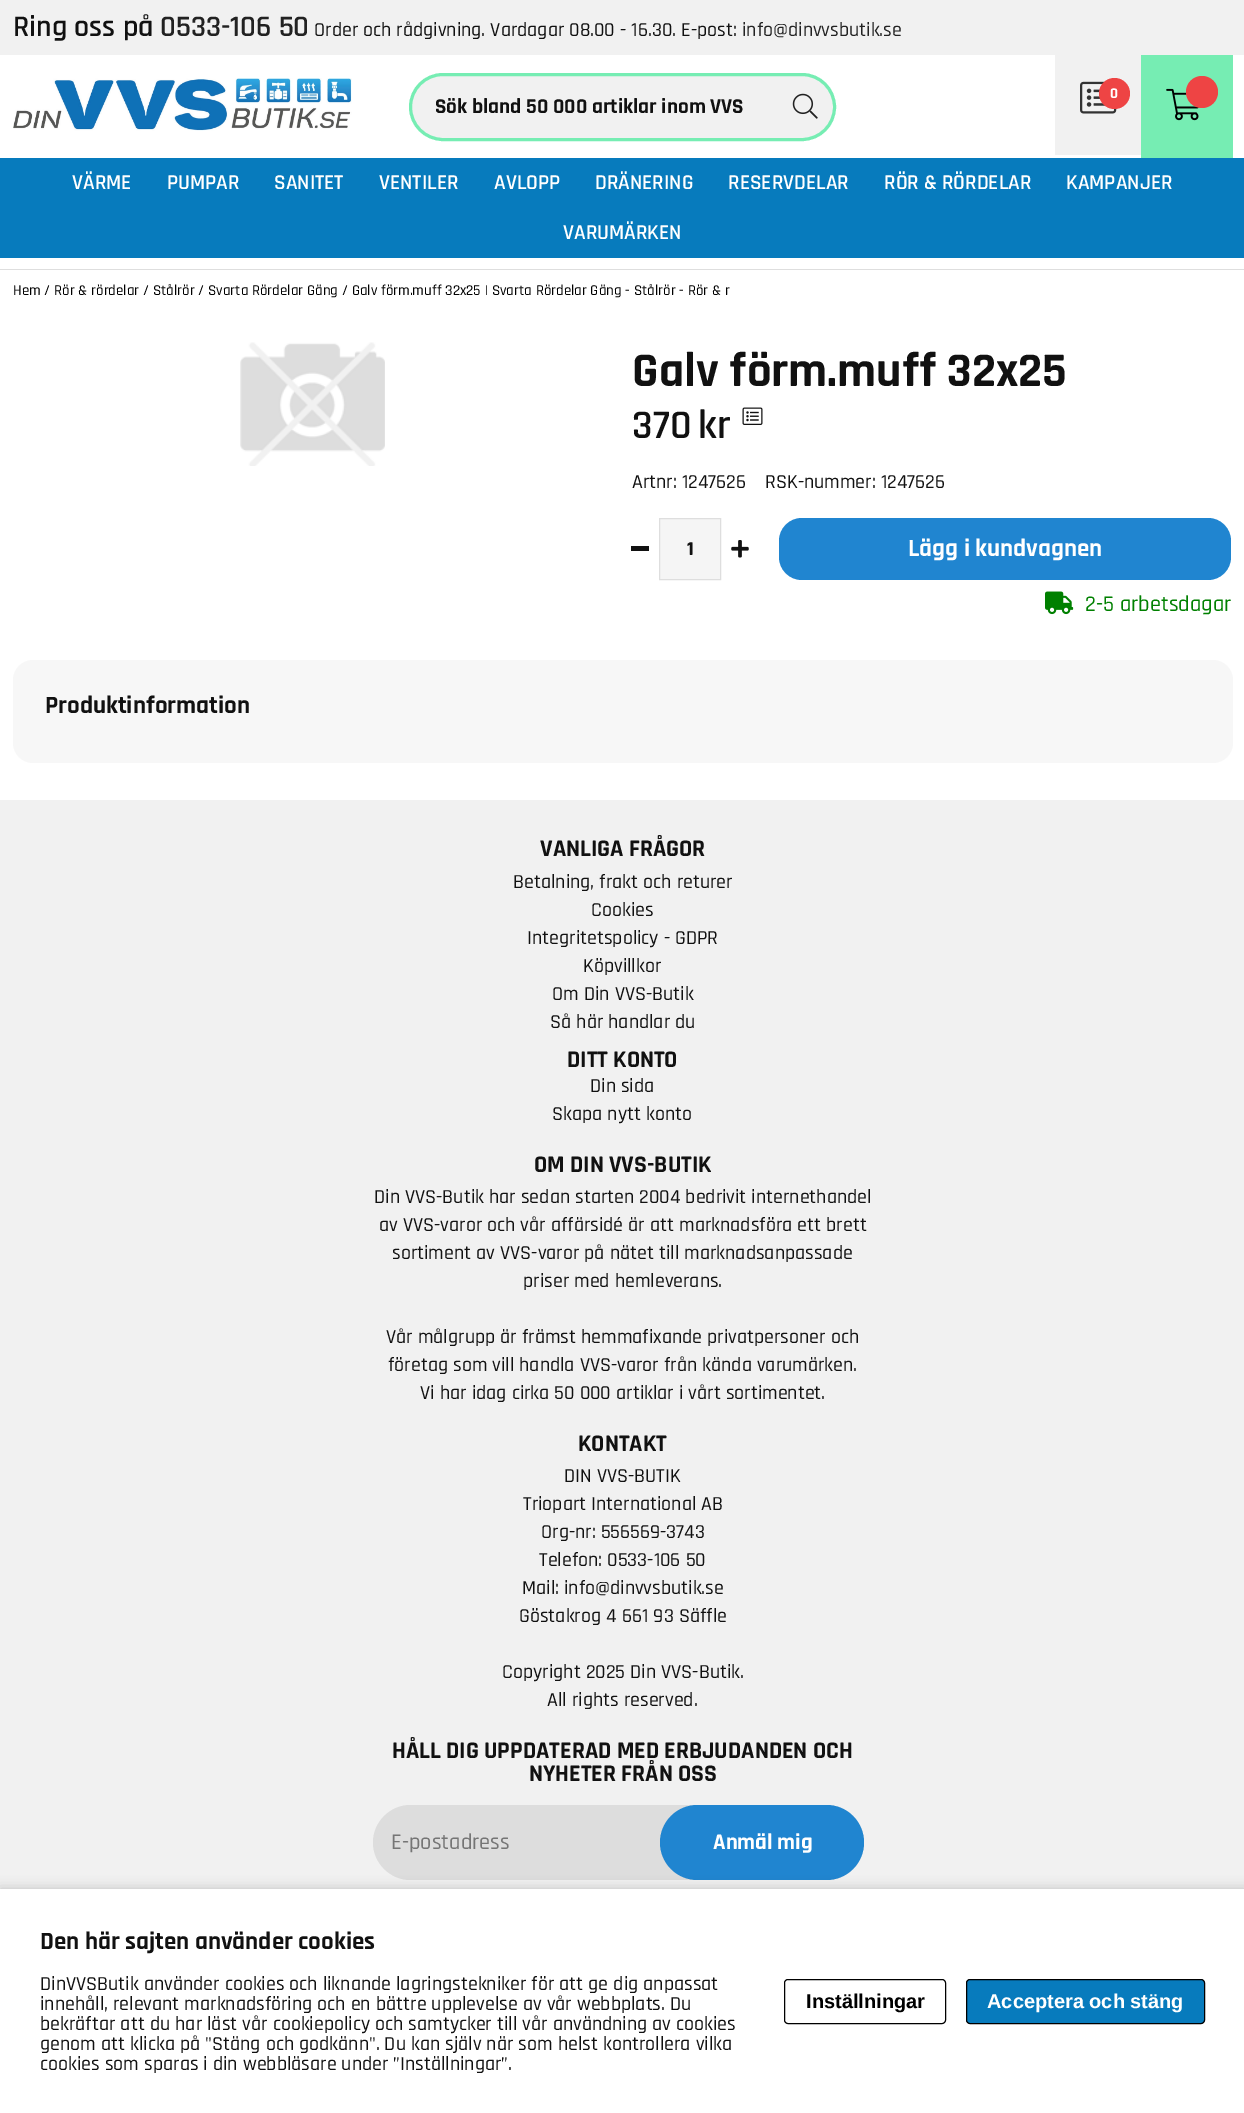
%!PS
<< /PageSize [1244 2113] /PageUsesTransparency true >> setpagedevice
/rgb { dup -16 bitshift 255 div exch dup -8 bitshift 255 and 255 div exch 255 and 255 div setrgbcolor } def
/font { [ exch dup neg 0 0 3 -1 roll 0 0 ] selectfont } def
/text { moveto show } def
/alpha { dup .setfillconstantalpha .setstrokeconstantalpha } def
/circle { newpath 0 360 arc closepath } def
/roundrect { 5 dict begin { /r /h /w /y /x } { exch def } forall
  x r add y moveto x w add y 2 copy h add r arct x w add y h add x 1 index r arct
  x y h add x y r arct x y 2 copy exch w add exch r arct closepath end } def
/shadow { 12 dict begin { /a /b /q /h /w /y /x } { exch def } forall gsave /was 0 def
  9 -2 -9 { dup b mul 4 div /e exch def 1 sub .425 mul 2.718 exch exp 1 add a .99 .min exch div /now exch def
    1 1 now sub 1 was sub div sub alpha /was now def
    w h .min e 2 mul add 0 gt { x e sub y e sub w e 2 mul add h e 2 mul add
      q e add b .6 mul add w h .min 2 div e add .min 0 .max roundrect fill } if } for grestore end } def
/picture { 5 dict begin { /h /w /y /x /name } { exch def } forall
  gsave x y translate w h scale
  w h 8 [w 0 0 h 0 0] name (r) file false 3 colorimage grestore end } def
0 .pushpdf14devicefilter
0 2113 translate 1 -1 scale
4 setmiterlimit
/s1 { /Rajdhani-SemiBold 30 font 16#111111 rgb } def
/s2 { /Rajdhani-SemiBold 30 font 16#222222 rgb } def
/s3 { /Rajdhani-Medium 20 font 16#111111 rgb } def
/s4 { /Rajdhani-Medium 20 font 16#222222 rgb } def
/s5 { /Rajdhani-Bold 15 font 16#FFFFFF rgb } def
/s6 { /Rajdhani-Bold 21.25 font 16#111111 rgb } def
/s7 { /Rajdhani-SemiBold 21.25 font 16#FFFFFF rgb } def
/s8 { /Rajdhani-Medium 15 font 16#000000 rgb } def
/s9 { /Rajdhani-Bold 48.75 font 16#111111 rgb } def
/s10 { /Rajdhani-SemiBold 41 font 16#111111 rgb } def
/s11 { /Rajdhani-Bold 20 font 16#111111 rgb } def
/s12 { /Rajdhani-Bold 25 font 16#FFFFFF rgb } def
/s13 { /Rajdhani-Medium 22.5 font 16#008000 rgb } def
/s14 { /Rajdhani-Bold 25 font 16#111111 rgb } def
/s15 { /Rajdhani-Bold 24 font 16#111111 rgb } def
/s16 { /Rajdhani-Medium 22.5 font 16#757575 rgb } def
/s17 { /Rajdhani-Bold 22.5 font 16#FFFFFF rgb } def
/s18 { /LiberationSans-Bold 20 font 16#000000 rgb } def
/s19 { /LiberationSans-Bold 20 font 16#FFFFFF rgb } def
16#FFFFFF rgb
0 0 1244 2113 rectfill
16#F1F1F1 rgb
0 0 1244 55 rectfill
s1
(Ring oss på) 13 36 text
s2
(0533-106 50) 160 36 text
s3
(Order och rådgivning. Vardagar 08.00 - 16.30. E-post:) 314 36 text
s4
(info@dinvvsbutik.se) 742 36 text
(pic1.raw) 13 78 339 53 picture
16#F1F1F1 rgb
1055 55 86 100 rectfill
(pic2.raw) 1080 81 37 33 picture
16#EE4444 rgb
1114.5 93.5 15.5 circle fill
s5
(0) 1110 98 text
16#76EDB3 rgb
1141 55 92 103 rectfill
(pic3.raw) 1166 88 33 33 picture
16#EE4444 rgb
1202 92 16 circle fill
16#F1F1F1 rgb
410.5 74.5 424 65 32.5 roundrect gsave fill grestore
16#76EDB3 rgb
3 setlinewidth
stroke
s6
(Sök bland 50 000 artiklar inom VVS) 435 113 text
(pic4.raw) 792 93 26 26 picture
16#077BBD rgb
0 158 1244 100 rectfill
s7
(VÄRME) 72 189 text
(PUMPAR) 167 189 text
(SANITET) 274 189 text
(VENTILER) 379 189 text
(AVLOPP) 494 189 text
(DRÄNERING) 595 189 text
(RESERVDELAR) 728 189 text
(RÖR & RÖRDELAR) 884 189 text
(KAMPANJER) 1066 189 text
(VARUMÄRKEN) 563 239 text
16#DEDEDE rgb
0 269 1244 1 rectfill
s8
(Hem / Rör & rördelar / Stålrör / Svarta Rördelar Gäng / Galv förm.muff 32x25 | Svarta Rördelar Gäng - Stålrör - Rör & r) 13 295 text
(pic5.raw) 240 342 145 124 picture
s9
(Galv förm.muff 32x25) 632 386 text
s10
(370) 632 438 text
(kr) 698 438 text
(pic6.raw) 742 407 21 18 picture
s3
(Artnr: 1247626) 632 488 text
(RSK-nummer: 1247626) 765 488 text
631 546 18 5 rectfill
16#F5F5F5 rgb
659.5 518.5 moveto 720.5 518.5 lineto 720.5 579.5 lineto 659.5 579.5 lineto closepath gsave fill grestore
16#DEDEDE rgb
1 setlinewidth
stroke
s11
(1) 687 555 text
(pic7.raw) 731 540 18 18 picture
16#2085D0 rgb
779 518 452 62 23 roundrect fill
s12
(Lägg i kundvagnen) 908 556 text
(pic8.raw) 1045 591 29 24 picture
s13
(2-5 arbetsdagar) 1085 611 text
16#F7F7F7 rgb
13 660 1220 103 20 roundrect fill
s14
(Produktinformation) 45 713 text
16#F1F1F1 rgb
0 800 1244 1089 rectfill
s15
(VANLIGA FRÅGOR) 540 856 text
s3
(Betalning, frakt och returer) 513 888 text
(Cookies) 591 916 text
(Integritetspolicy - GDPR) 527 944 text
(Köpvillkor) 583 972 text
(Om Din VVS-Butik) 552 1000 text
(Så här handlar du) 550 1028 text
s15
(DITT KONTO) 567 1067 text
s3
(Din sida) 590 1092 text
(Skapa nytt konto) 552 1120 text
s15
(OM DIN VVS-BUTIK) 534 1172 text
s3
(Din VVS-Butik har sedan starten 2004 bedrivit internethandel) 374 1203 text
(av VVS-varor och vår affärsidé är att marknadsföra ett brett) 379 1231 text
(sortiment av VVS-varor på nätet till marknadsanpassade) 392 1259 text
(priser med hemleverans.) 523 1287 text
(Vår målgrupp är främst hemmafixande privatpersoner och) 386 1343 text
(företag som vill handla VVS-varor från kända varumärken.) 388 1371 text
(Vi har idag cirka 50 000 artiklar i vårt sortimentet.) 420 1399 text
s15
(KONTAKT) 578 1451 text
s3
(DIN VVS-BUTIK) 564 1482 text
(Triopart International AB) 523 1510 text
(Org-nr: 556569-3743) 541 1538 text
(Telefon: 0533-106 50) 539 1566 text
(Mail: info@dinvvsbutik.se) 522 1594 text
(Göstakrog 4 661 93 Säffle) 519 1622 text
(Copyright 2025 Din VVS-Butik.) 502 1678 text
(All rights reserved.) 547 1706 text
s15
(HÅLL DIG UPPDATERAD MED ERBJUDANDEN OCH) 392 1758 text
(NYHETER FRÅN OSS) 529 1781 text
16#DDDDDD rgb
410.5 1805 moveto 660 1805 lineto 660 1880 lineto 410.5 1880 lineto 390 1880 373 1863 373 1842.5 curveto 373 1822 390 1805 410.5 1805 curveto closepath fill
s16
(E-postadress) 391 1849 text
16#DDDDDD rgb
660 1805 moveto 826.5 1805 lineto 847 1805 864 1822 864 1842.5 curveto 864 1863 847 1880 826.5 1880 curveto 660 1880 lineto closepath fill
16#2085D0 rgb
660 1805 204 75 37.5 roundrect fill
s17
(Anmäl mig) 713 1849 text
16#000000 rgb
0 1889 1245 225 0 6 0.2 shadow
16#FFFFFF rgb
0 1889 1244 224 rectfill
s14
(Den här sajten använder cookies) 40 1949 text
s3
(DinVVSButik använder cookies och liknande lagringstekniker för att ge dig anpassat) 40 1990 text
(innehåll, relevant marknadsföring och en bättre upplevelse av vår webbplats. Du) 40 2010 text
(bekräftar att du har läst vår cookiepolicy och samtycker till vår användning av cookies) 40 2030 text
(genom att klicka på "Stäng och godkänn". Du kan själv när som helst kontrollera vilka) 40 2050 text
(cookies som sparas i din webbläsare under ”Inställningar”.) 40 2070 text
16#000000 rgb
784.5 1979.5 161 44 3.5 roundrect stroke
s18
(Inställningar) 806 2008 text
16#077BBD rgb
966.5 1979.5 238 44 3.5 roundrect gsave fill grestore
16#000000 rgb
stroke
s19
(Acceptera och stäng) 987 2008 text
.poppdf14devicefilter showpage
